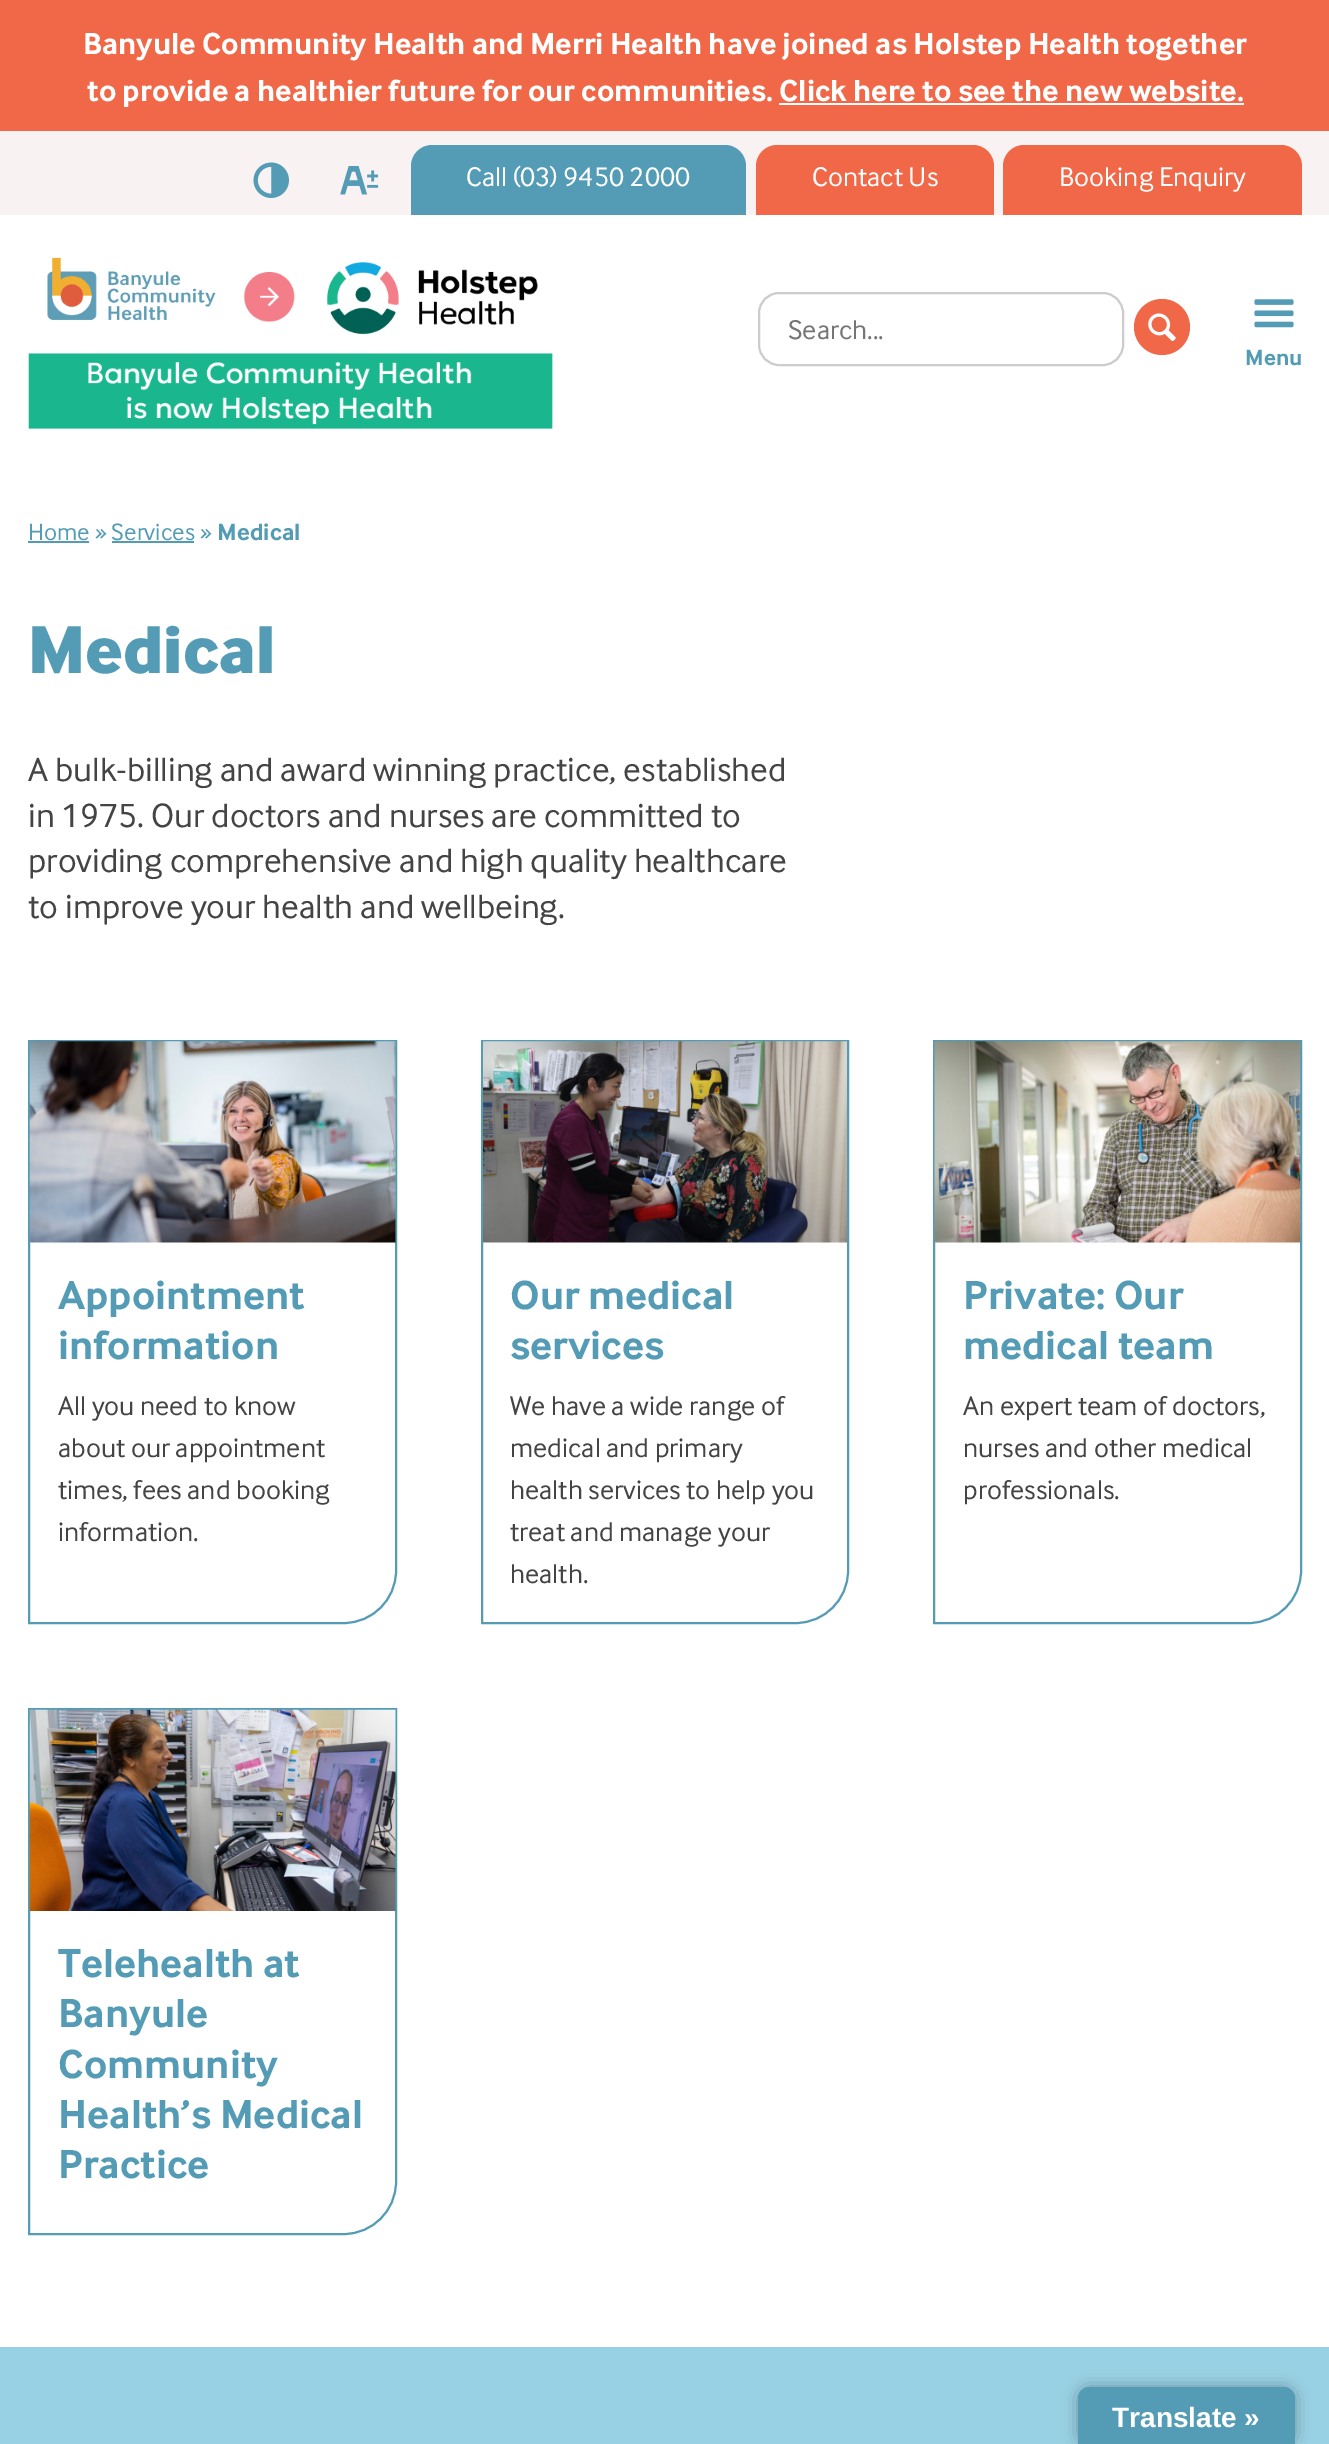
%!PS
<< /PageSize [1329 2444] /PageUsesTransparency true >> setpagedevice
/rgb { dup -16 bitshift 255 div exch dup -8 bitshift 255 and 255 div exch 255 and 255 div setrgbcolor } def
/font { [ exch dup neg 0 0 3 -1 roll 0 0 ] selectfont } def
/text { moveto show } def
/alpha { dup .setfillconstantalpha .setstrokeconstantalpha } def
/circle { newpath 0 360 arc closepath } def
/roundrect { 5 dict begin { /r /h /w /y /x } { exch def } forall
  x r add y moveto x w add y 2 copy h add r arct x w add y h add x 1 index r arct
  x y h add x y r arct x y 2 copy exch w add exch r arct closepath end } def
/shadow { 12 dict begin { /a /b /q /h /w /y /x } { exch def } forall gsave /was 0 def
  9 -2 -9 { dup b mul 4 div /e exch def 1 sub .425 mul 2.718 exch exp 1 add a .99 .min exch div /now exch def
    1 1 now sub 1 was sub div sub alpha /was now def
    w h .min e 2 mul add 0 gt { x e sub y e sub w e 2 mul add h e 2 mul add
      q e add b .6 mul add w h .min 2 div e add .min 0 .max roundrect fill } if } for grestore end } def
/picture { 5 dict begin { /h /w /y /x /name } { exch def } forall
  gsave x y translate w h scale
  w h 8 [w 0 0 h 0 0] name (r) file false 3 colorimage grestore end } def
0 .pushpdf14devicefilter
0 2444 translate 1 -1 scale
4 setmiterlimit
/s1 { /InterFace-Bold 31.5 font 16#FFFFFF rgb } def
/s2 { /InterFace-Regular 28 font 16#FFFFFF rgb } def
/s3 { /InterFace-Regular 28 font 16#757575 rgb } def
/s4 { /InterFace-Bold 23 font 16#549CB5 rgb } def
/s5 { /InterFace-Regular 24.5 font 16#549CB5 rgb } def
/s6 { /InterFace-Bold 24.5 font 16#549CB5 rgb } def
/s7 { /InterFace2-Bold 70 font 16#549CB5 rgb } def
/s8 { /InterFace-Regular 35 font 16#444444 rgb } def
/s9 { /InterFace-Bold 42 font 16#549CB5 rgb } def
/s10 { /InterFace-Regular 28 font 16#444444 rgb } def
/s11 { /LiberationSans-Bold 28 font 16#FFFFFF rgb } def
16#FFFFFF rgb
0 0 1329 2444 rectfill
16#F16849 rgb
0 0 1329 131 rectfill
s1
(Banyule Community Health and Merri Health have joined as Holstep Health together) 83 54 text
(to provide a healthier future for our communities. Click here to see the new website.) 87 101 text
779 103 465 2 rectfill
16#F8F2F2 rgb
0 131 1329 84 rectfill
(pic1.raw) 253 162 36 36 picture
(pic2.raw) 340 166 39 29 picture
16#549CB5 rgb
432 145 moveto 725 145 lineto 736.5 145 746 154.5 746 166 curveto 746 215 lineto 411 215 lineto 411 166 lineto 411 154.5 420.5 145 432 145 curveto closepath fill
s2
(Call \(03\) 9450 2000) 466 186 text
16#F16849 rgb
777 145 moveto 973 145 lineto 984.5 145 994 154.5 994 166 curveto 994 215 lineto 756 215 lineto 756 166 lineto 756 154.5 765.5 145 777 145 curveto closepath fill
s2
(Contact Us) 812 186 text
16#F16849 rgb
1024 145 moveto 1281 145 lineto 1292.5 145 1302 154.5 1302 166 curveto 1302 215 lineto 1003 215 lineto 1003 166 lineto 1003 154.5 1012.5 145 1024 145 curveto closepath fill
s2
(Booking Enquiry) 1059 186 text
(pic3.raw) 28 257 525 172 picture
16#CCCCCC rgb
2 setlinewidth
759 293 364 72 20 roundrect stroke
s3
(Search...) 788 339 text
16#F16849 rgb
1162 327 28 circle fill
(pic4.raw) 1148 313 28 28 picture
(pic5.raw) 1254 299 40 29 picture
s4
(Menu) 1245 365 text
s5
(Home » Services ») 28 540 text
28 541 61 2 rectfill
112 541 82 2 rectfill
s6
(Medical) 217 540 text
s7
(Medical) 28 673 text
s8
(A bulk-billing and award winning practice, established) 28 781 text
(in 1975. Our doctors and nurses are committed to) 28 827 text
(providing comprehensive and high quality healthcare) 28 872 text
(to improve your health and wellbeing.) 28 918 text
16#549CB5 rgb
29 1041 moveto 396 1041 lineto 396 1571 lineto 396 1599.5 372.5 1623 344 1623 curveto 29 1623 lineto closepath stroke
(pic6.raw) 29 1041 367 202 picture
s9
(Appointment) 58 1309 text
(information) 58 1359 text
s10
(All you need to know) 58 1415 text
(about our appointment) 58 1457 text
(times, fees and booking) 58 1499 text
(information.) 58 1541 text
16#549CB5 rgb
482 1041 moveto 848 1041 lineto 848 1571 lineto 848 1599.5 824.5 1623 796 1623 curveto 482 1623 lineto closepath stroke
(pic7.raw) 483 1041 364 202 picture
s9
(Our medical) 510 1309 text
(services) 510 1359 text
s10
(We have a wide range of) 510 1415 text
(medical and primary) 510 1457 text
(health services to help you) 510 1499 text
(treat and manage your) 510 1541 text
(health.) 510 1583 text
16#549CB5 rgb
934 1041 moveto 1301 1041 lineto 1301 1571 lineto 1301 1599.5 1277.5 1623 1249 1623 curveto 934 1623 lineto closepath stroke
(pic8.raw) 934 1041 367 202 picture
s9
(Private: Our) 963 1309 text
(medical team) 963 1359 text
s10
(An expert team of doctors,) 963 1415 text
(nurses and other medical) 963 1457 text
(professionals.) 963 1499 text
16#549CB5 rgb
29 1709 moveto 396 1709 lineto 396 2182 lineto 396 2210.5 372.5 2234 344 2234 curveto 29 2234 lineto closepath stroke
(pic9.raw) 29 1709 367 202 picture
s9
(Telehealth at) 58 1977 text
(Banyule) 58 2027 text
(Community) 58 2078 text
(Health’s Medical) 58 2128 text
(Practice) 58 2178 text
16#99D1E4 rgb
0 2347 1329 97 rectfill
16#000000 rgb
1078 2387 217 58 11 8 0.3 shadow
16#549CB5 rgb
1089 2387 moveto 1284 2387 lineto 1290 2387 1295 2392 1295 2398 curveto 1295 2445 lineto 1078 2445 lineto 1078 2398 lineto 1078 2392 1083 2387 1089 2387 curveto closepath fill
s11
(Translate ») 1112 2427 text
.poppdf14devicefilter showpage
